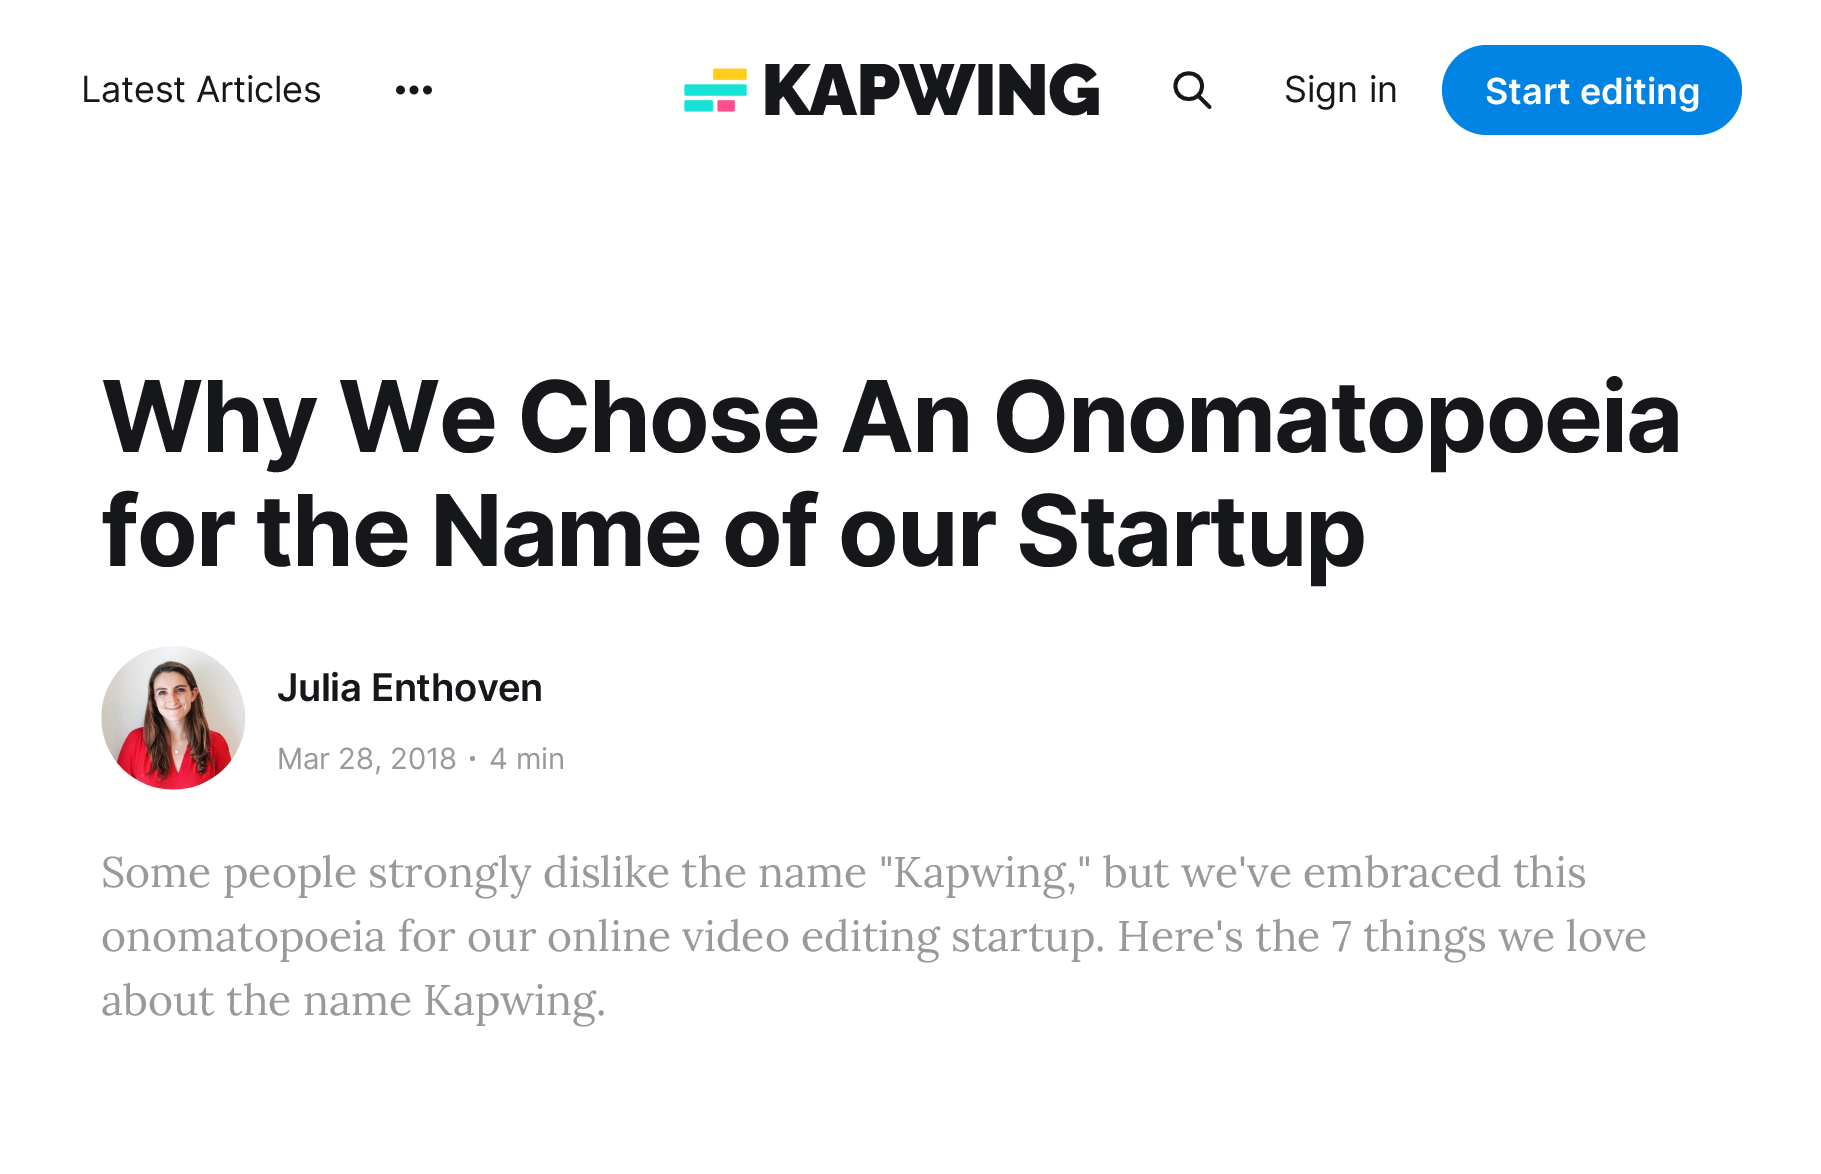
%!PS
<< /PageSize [1821 1174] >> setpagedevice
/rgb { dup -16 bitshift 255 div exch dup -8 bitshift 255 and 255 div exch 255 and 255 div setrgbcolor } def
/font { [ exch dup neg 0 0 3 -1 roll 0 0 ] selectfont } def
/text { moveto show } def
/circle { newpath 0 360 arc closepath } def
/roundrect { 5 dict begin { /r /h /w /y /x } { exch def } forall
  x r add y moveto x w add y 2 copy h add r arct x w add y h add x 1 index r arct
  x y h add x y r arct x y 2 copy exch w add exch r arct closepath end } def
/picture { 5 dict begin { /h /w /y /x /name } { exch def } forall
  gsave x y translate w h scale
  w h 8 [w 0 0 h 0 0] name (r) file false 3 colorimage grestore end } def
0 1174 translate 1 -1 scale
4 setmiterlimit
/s1 { /Inter-Regular 36 font 16#15171A rgb } def
/s2 { /Inter-SemiBold 36 font 16#FFFFFF rgb } def
/s3 { /Lora-Regular 42.75 font 16#999999 rgb } def
16#FFFFFF rgb
0 0 1821 1174 rectfill
/Inter-Regular 36 font
16#15171A rgb
81 102 moveto -0.25 0 (Latest Articles) ashow
(pic1.raw) 396 85 36 10 picture
(pic2.raw) 684 68 63 44 picture
/Raleway-Thin 72 font
761 115 moveto -1.5 0 (KAPWING) ashow
3.8 setlinewidth
1 setlinecap
1 setlinejoin
1209.5 107 moveto 1198 95.5 lineto 1202 86 moveto 1202 103.5 1175.5 103.5 1175.5 86 curveto 1175.5 69 1202 69 1202 86 curveto closepath stroke
s1
(Sign in) 1284 102 text
16#0083E2 rgb
1442 45 300 90 45 roundrect fill
s2
(Start editing) 1485 104 text
/Inter-Bold 99 font
16#15171A rgb
101 452 moveto -2 0 (Why We Chose An Onomatopoeia) ashow
101 566 moveto -2 0 (for the Name of our Startup) ashow
(pic3.raw) 101 646 144 144 picture
/Inter-SemiBold 38.25 font
277 701 moveto -0.4 0 (Julia Enthoven) ashow
/Inter-Regular 29.25 font
16#999999 rgb
277 769 moveto -0.1 0 (Mar 28, 2018) ashow
472.5 758.5 2.5 circle fill
489 769 moveto -0.1 0 (4 min) ashow
s3
(Some people strongly dislike the name "Kapwing," but we've embraced this) 101 887 text
(onomatopoeia for our online video editing startup. Here's the 7 things we love) 101 951 text
(about the name Kapwing.) 101 1015 text
showpage
